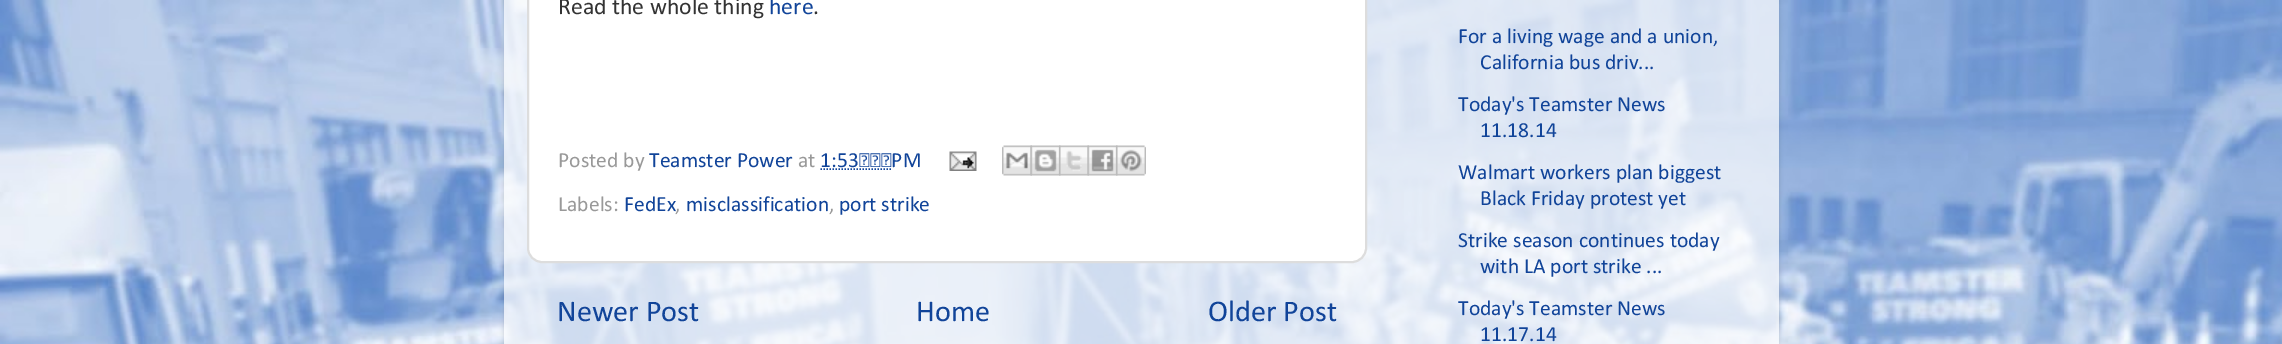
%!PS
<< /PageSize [2282 344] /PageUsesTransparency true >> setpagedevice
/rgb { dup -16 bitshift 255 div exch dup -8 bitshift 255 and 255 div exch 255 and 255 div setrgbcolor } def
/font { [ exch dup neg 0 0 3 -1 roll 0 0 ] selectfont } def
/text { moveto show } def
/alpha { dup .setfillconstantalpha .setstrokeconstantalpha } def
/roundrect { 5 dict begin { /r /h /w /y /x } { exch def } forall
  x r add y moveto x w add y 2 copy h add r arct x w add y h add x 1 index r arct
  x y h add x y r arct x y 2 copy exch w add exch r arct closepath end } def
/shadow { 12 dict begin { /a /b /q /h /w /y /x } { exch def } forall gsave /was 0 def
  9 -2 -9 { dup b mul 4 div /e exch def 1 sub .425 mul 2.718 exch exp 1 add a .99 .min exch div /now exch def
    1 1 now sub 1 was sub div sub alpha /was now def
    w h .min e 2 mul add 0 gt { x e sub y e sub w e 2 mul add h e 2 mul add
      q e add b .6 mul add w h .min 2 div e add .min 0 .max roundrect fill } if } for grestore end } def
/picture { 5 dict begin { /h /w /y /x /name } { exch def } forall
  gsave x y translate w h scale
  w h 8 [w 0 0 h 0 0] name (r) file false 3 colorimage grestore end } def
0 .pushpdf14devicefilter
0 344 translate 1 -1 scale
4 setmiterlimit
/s1 { /Calibri-Regular 23.75 font 16#333333 rgb } def
/s2 { /Calibri-Regular 23.75 font 16#114499 rgb } def
/s3 { /Calibri-Regular 21.6 font 16#999999 rgb } def
/s4 { /Calibri-Regular 21.6 font 16#114499 rgb } def
/s5 { /Calibri-Regular 30.25 font 16#114499 rgb } def
16#FFFFFF rgb
0 0 2282 344 rectfill
(pic1.raw) 0 0 2282 344 picture
gsave
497 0 moveto 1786 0 lineto 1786 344 lineto 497 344 lineto closepath 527 -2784 moveto 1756 -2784 lineto 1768.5 -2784 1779 -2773.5 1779 -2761 curveto 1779 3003 lineto 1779 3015.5 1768.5 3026 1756 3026 curveto 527 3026 lineto 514.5 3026 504 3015.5 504 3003 curveto 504 -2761 lineto 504 -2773.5 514.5 -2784 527 -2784 curveto closepath eoclip newpath
16#000000 rgb
504 -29 1275 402 23 2 0.15 shadow
grestore
0.7 alpha
504 0 1275 344 rectfill
1 alpha
528 -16 838 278 14 roundrect gsave fill grestore
16#DDDDDD rgb
2 setlinewidth
stroke
s1
(Read the whole thing) 558 14 text
s2
(here) 769 14 text
s1
(.) 813 14 text
s3
(Posted by) 558 167 text
s4
(Teamster Power) 649 167 text
s3
(at) 798 167 text
s4
(1:53 PM) 820 167 text
1.5 setlinewidth
[1.5 1.5] 0 setdash
820.5 169 moveto 891 169 lineto stroke
(pic2.raw) 949 151 28 20 picture
(pic3.raw) 1002 145 30 31 picture
(pic4.raw) 1030 145 31 31 picture
(pic5.raw) 1059 145 30 31 picture
(pic6.raw) 1087 145 31 31 picture
(pic7.raw) 1116 145 30 31 picture
s3
(Labels:) 558 211 text
s4
(FedEx) 624 211 text
s3
(,) 675 211 text
s4
(misclassification) 686 211 text
s3
(,) 829 211 text
s4
(port strike) 839 211 text
s5
(Newer Post) 557 321 text
(Home) 916 321 text
(Older Post) 1208 321 text
s4
(For a living wage and a union,) 1458 43 text
(California bus driv...) 1480 69 text
(Today's Teamster News) 1458 111 text
(11.18.14) 1480 137 text
(Walmart workers plan biggest) 1458 179 text
(Black Friday protest yet) 1480 205 text
(Strike season continues today) 1458 247 text
(with LA port strike ...) 1480 273 text
(Today's Teamster News) 1458 315 text
(11.17.14) 1480 341 text
.poppdf14devicefilter showpage
